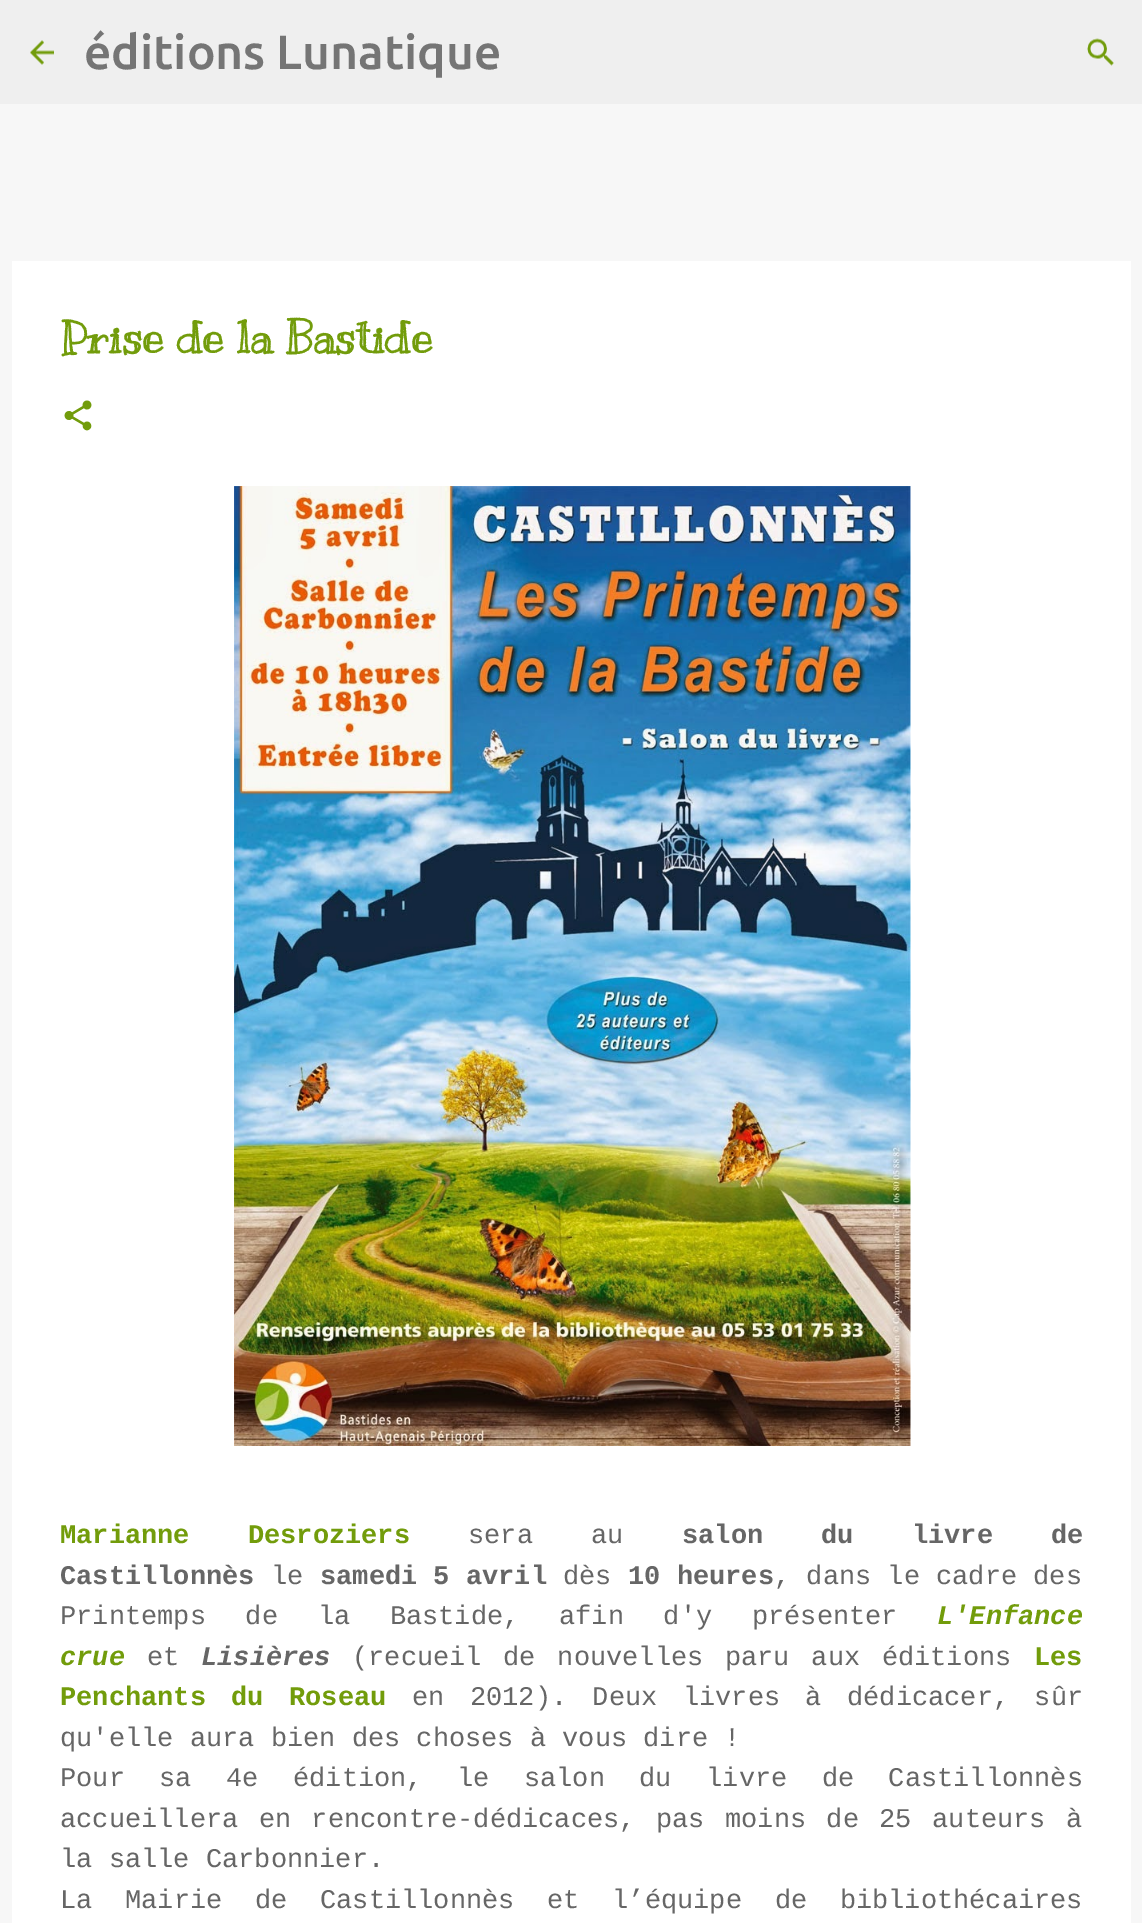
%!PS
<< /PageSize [1142 1923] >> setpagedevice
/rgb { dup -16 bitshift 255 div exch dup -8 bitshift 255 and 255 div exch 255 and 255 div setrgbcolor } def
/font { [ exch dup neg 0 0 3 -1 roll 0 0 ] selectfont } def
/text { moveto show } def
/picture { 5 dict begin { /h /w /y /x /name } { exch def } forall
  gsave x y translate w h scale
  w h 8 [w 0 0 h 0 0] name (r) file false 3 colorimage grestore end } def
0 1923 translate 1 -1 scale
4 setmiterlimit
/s1 { /Ubuntu-Medium 48 font 16#757575 rgb } def
/s2 { /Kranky-Bold 45 font 16#729C0B rgb } def
/s3 { /LiberationMono-Bold 27 font 16#666666 rgb } def
/s4 { /LiberationMono-Regular 27 font 16#666666 rgb } def
/s5 { /LiberationMono-BoldItalic 27 font 16#729C0B rgb } def
/s6 { /LiberationMono-BoldItalic 27 font 16#666666 rgb } def
/s7 { /LiberationMono-Bold 27 font 16#729C0B rgb } def
16#F7F7F7 rgb
0 0 1142 1923 rectfill
16#EFEFEF rgb
0 0 1142 104 rectfill
(pic1.raw) 30 40 24 25 picture
s1
(éditions Lunatique) 84 69 text
(pic2.raw) 1087 38 27 28 picture
16#FFFFFF rgb
12 261 1119 1662 rectfill
s2
(Prise de la Bastide) 60 353 text
(pic3.raw) 64 400 28 31 picture
(pic4.raw) 234 486 677 960 picture
/LiberationMono-Bold 27 font
60 1543 moveto 42 0 32 (Marianne Desroziers) widthshow
/LiberationMono-Regular 27 font
16#666666 rgb
468 1543 moveto 42 0 32 (sera au) widthshow
/LiberationMono-Bold 27 font
682 1543 moveto 42 0 32 (salon du livre de) widthshow
(Castillonnès) 60 1584 text
s4
(le) 271 1584 text
s3
(samedi 5 avril) 320 1584 text
s4
(dès) 563 1584 text
s3
(10 heures) 628 1584 text
s4
(, dans le cadre des) 774 1584 text
60 1624 moveto 23.5 0 32 (Printemps de la Bastide, afin d'y présenter) widthshow
s5
(L'Enfance) 937 1624 text
(crue) 60 1665 text
s4
(et) 147 1665 text
s6
(Lisières) 201 1665 text
/LiberationMono-Regular 27 font
352 1665 moveto 5.5 0 32 (\(recueil de nouvelles paru aux éditions) widthshow
s7
(Les) 1034 1665 text
60 1705 moveto 9.25 0 32 (Penchants du Roseau) widthshow
/LiberationMono-Regular 27 font
16#666666 rgb
412 1705 moveto 9.25 0 32 (en 2012\). Deux livres à dédicacer, sûr) widthshow
(qu'elle aura bien des choses à vous dire !) 60 1746 text
60 1786 moveto 18.25 0 32 (Pour sa 4e édition, le salon du livre de Castillonnès) widthshow
60 1827 moveto 4.25 0 32 (accueillera en rencontre-dédicaces, pas moins de 25 auteurs à) widthshow
(la salle Carbonnier.) 60 1867 text
60 1908 moveto 16.5 0 32 (La Mairie de Castillonnès et l’équipe de bibliothécaires) widthshow
showpage
